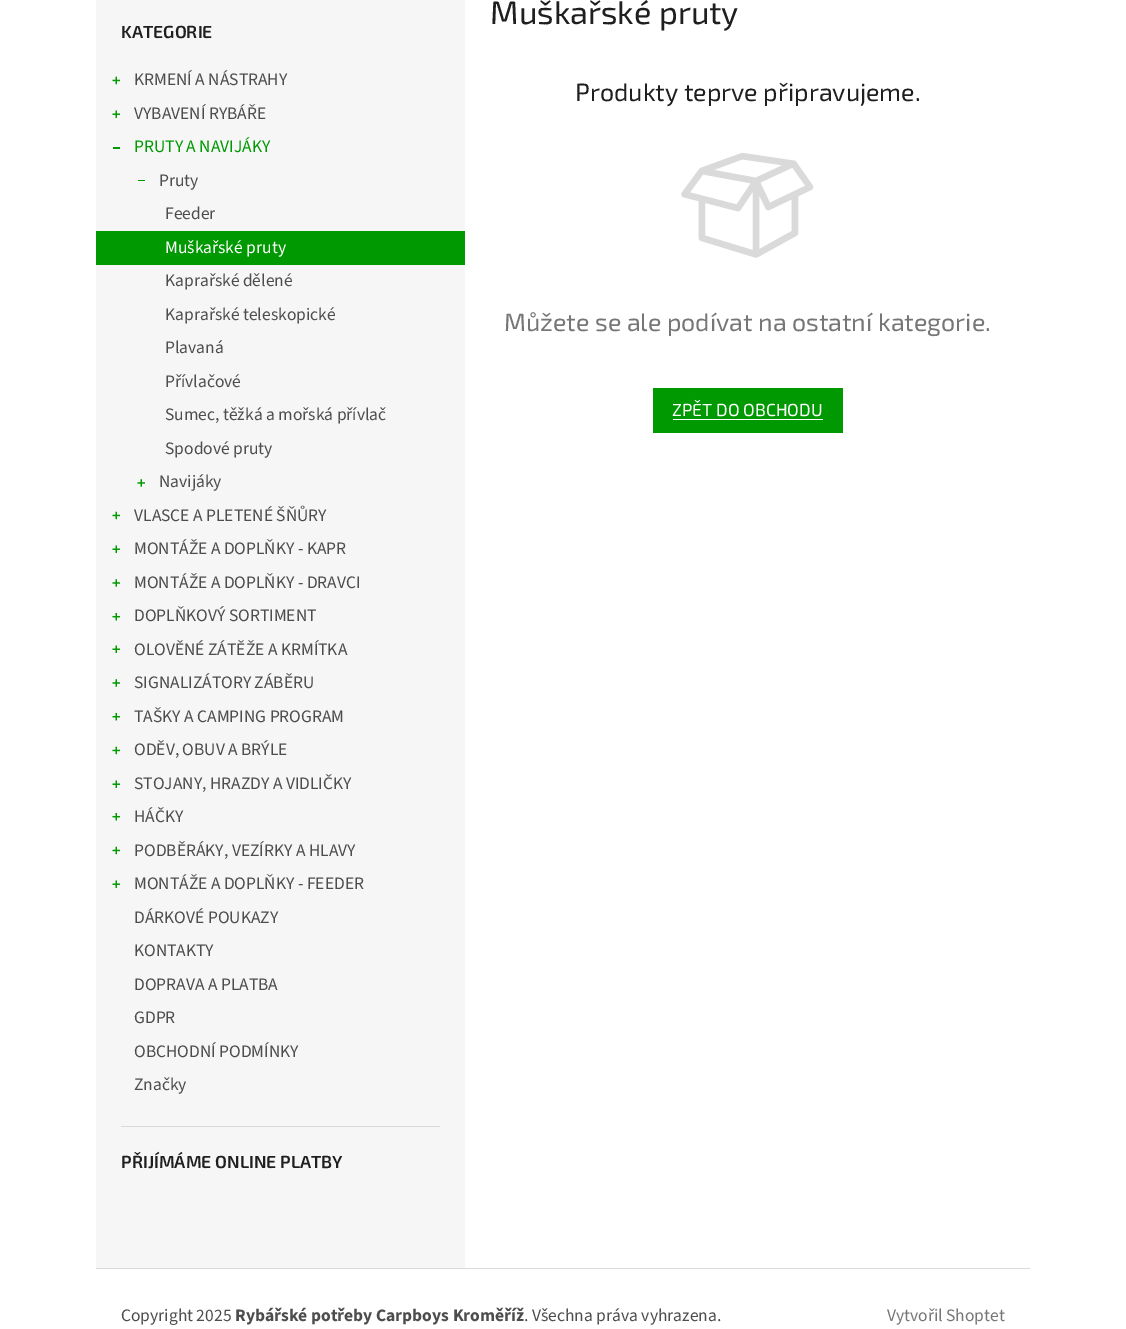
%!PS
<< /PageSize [1126 1329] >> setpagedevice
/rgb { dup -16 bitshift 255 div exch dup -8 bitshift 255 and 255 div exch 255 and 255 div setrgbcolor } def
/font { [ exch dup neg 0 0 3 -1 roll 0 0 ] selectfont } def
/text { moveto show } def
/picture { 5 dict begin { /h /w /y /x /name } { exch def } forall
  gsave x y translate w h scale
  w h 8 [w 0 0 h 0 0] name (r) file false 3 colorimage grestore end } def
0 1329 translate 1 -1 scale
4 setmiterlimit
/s1 { /Exo2-SemiBold 17.5 font 16#1F1F1F rgb } def
/s2 { /SourceSans3-Regular 17.5 font 16#4D4D4D rgb } def
/s3 { /SourceSans3-Regular 17.5 font 16#009901 rgb } def
/s4 { /SourceSans3-Regular 17.5 font 16#FFFFFF rgb } def
/s5 { /Exo2-Regular 32.5 font 16#1F1F1F rgb } def
/s6 { /Exo2-Regular 25 font 16#1F1F1F rgb } def
/s7 { /Exo2-Regular 25 font 16#767676 rgb } def
/s8 { /Exo2-Regular 17.5 font 16#FFFFFF rgb } def
/s9 { /SourceSans3-Bold 17.5 font 16#4D4D4D rgb } def
/s10 { /SourceSans3-Regular 17.5 font 16#767676 rgb } def
16#FFFFFF rgb
0 0 1126 1329 rectfill
16#F6F6F6 rgb
96 0 369 1268 rectfill
16#DADADA rgb
121 1126 319 1 rectfill
s1
(KATEGORIE) 121 38 text
(pic1.raw) 112 76 8 9 picture
s2
(KRMENÍ A NÁSTRAHY) 134 85 text
(pic2.raw) 112 110 8 8 picture
(VYBAVENÍ RYBÁŘE) 134 119 text
16#009901 rgb
113 147 7 2 rectfill
(PRUTY A NAVIJÁKY) 134 152 text
138 180 7 1 rectfill
s2
(Pruty) 159 186 text
(Feeder) 165 219 text
16#009901 rgb
96 231 369 34 rectfill
s4
(Muškařské pruty) 165 253 text
s2
(Kaprařské dělené) 165 286 text
(Kaprařské teleskopické) 165 320 text
(Plavaná) 165 353 text
(Přívlačové) 165 387 text
(Sumec, těžká a mořská přívlač) 165 420 text
(Spodové pruty) 165 454 text
(pic3.raw) 137 479 8 8 picture
(Navijáky) 159 487 text
(pic1.raw) 112 511 8 9 picture
(VLASCE A PLETENÉ ŠŇŮRY) 134 521 text
(pic2.raw) 112 545 8 8 picture
(MONTÁŽE A DOPLŇKY - KAPR) 134 554 text
(pic3.raw) 112 579 8 8 picture
(MONTÁŽE A DOPLŇKY - DRAVCI) 134 588 text
(pic4.raw) 112 612 8 9 picture
(DOPLŇKOVÝ SORTIMENT) 134 621 text
(pic2.raw) 112 645 8 8 picture
(OLOVĚNÉ ZÁTĚŽE A KRMÍTKA) 134 655 text
(pic3.raw) 112 679 8 8 picture
(SIGNALIZÁTORY ZÁBĚRU) 134 688 text
(pic4.raw) 112 712 8 9 picture
(TAŠKY A CAMPING PROGRAM) 134 722 text
(pic1.raw) 112 746 8 9 picture
(ODĚV, OBUV A BRÝLE) 134 755 text
(pic2.raw) 112 780 8 8 picture
(STOJANY, HRAZDY A VIDLIČKY) 134 789 text
(pic4.raw) 112 812 8 9 picture
(HÁČKY) 134 822 text
(pic1.raw) 112 846 8 9 picture
(PODBĚRÁKY, VEZÍRKY A HLAVY) 134 856 text
(pic2.raw) 112 880 8 8 picture
(MONTÁŽE A DOPLŇKY - FEEDER) 134 889 text
(DÁRKOVÉ POUKAZY) 134 923 text
(KONTAKTY) 134 956 text
(DOPRAVA A PLATBA) 134 990 text
(GDPR) 134 1023 text
(OBCHODNÍ PODMÍNKY) 134 1057 text
(Značky) 134 1090 text
s1
(PŘIJÍMÁME ONLINE PLATBY) 121 1168 text
s5
(Muškařské pruty) 490 24 text
s6
(Produkty teprve připravujeme.) 575 101 text
(pic5.raw) 681 152 133 106 picture
s7
(Můžete se ale podívat na ostatní kategorie.) 504 331 text
16#009901 rgb
653 388 190 45 rectfill
s8
(ZPĚT DO OBCHODU) 672 416 text
673 419 150 1 rectfill
16#DADADA rgb
96 1268 934 1 rectfill
s2
(Copyright 2025) 121 1321 text
s9
(Rybářské potřeby Carpboys Kroměříž) 235 1321 text
s2
(. Všechna práva vyhrazena.) 524 1321 text
s10
(Vytvořil Shoptet) 887 1321 text
showpage
